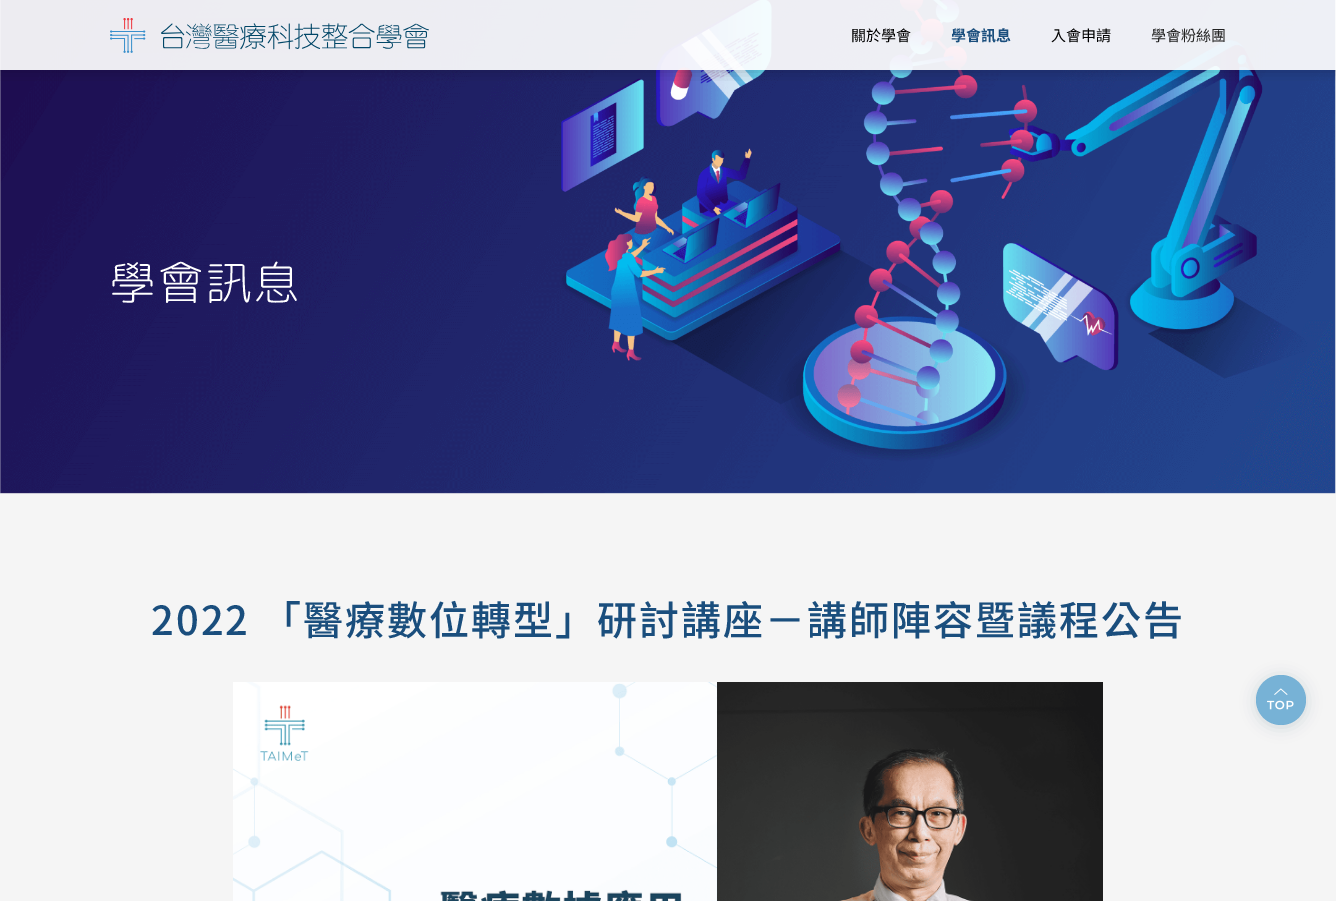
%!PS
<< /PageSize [1336 901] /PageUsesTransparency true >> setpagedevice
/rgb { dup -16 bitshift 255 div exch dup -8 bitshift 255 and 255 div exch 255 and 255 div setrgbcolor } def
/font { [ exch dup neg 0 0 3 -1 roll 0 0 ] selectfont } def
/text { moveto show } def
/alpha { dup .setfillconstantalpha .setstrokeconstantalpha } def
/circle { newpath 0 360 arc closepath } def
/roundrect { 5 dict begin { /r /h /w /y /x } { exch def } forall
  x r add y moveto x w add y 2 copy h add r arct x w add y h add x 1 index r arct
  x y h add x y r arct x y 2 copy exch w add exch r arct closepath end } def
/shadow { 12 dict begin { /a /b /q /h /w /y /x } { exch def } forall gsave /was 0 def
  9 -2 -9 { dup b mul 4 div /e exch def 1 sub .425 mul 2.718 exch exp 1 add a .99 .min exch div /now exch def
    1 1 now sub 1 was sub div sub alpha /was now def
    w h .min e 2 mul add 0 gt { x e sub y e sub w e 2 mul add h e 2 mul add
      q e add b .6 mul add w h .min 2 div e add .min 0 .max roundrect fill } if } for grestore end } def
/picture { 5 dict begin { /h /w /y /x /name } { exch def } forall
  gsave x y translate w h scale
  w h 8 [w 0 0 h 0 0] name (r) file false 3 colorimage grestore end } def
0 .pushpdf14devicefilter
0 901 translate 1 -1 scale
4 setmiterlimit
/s1 { /NotoSansTC-Regular 15 font 16#000000 rgb } def
/s2 { /NotoSansTC-Bold 15 font 16#1A4E7D rgb } def
/s3 { /NotoSansTC-Regular 15 font 16#222222 rgb } def
16#F5F5F5 rgb
0 0 1336 901 rectfill
(pic2.raw) 0 0 1336 494 picture
gsave
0 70 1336 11 rectclip
16#000000 rgb
0 1 1336 70 0 7.5 0.2 shadow
grestore
0.92 alpha
16#FFFFFF rgb
0 0 1336 70 rectfill
1 alpha
(pic1.raw) 110 18 319 35 picture
s1
(關於學會) 851 41 text
s2
(學會訊息) 951 41 text
s1
(入會申請) 1051 41 text
s3
(學會粉絲團) 1151 41 text
/RoundedMplus1c-Light 45 font
16#FFFFFF rgb
110 299 moveto 3 0 (學會訊息) ashow
/NotoSansTC-Medium 40 font
16#1A4E7D rgb
151 635 moveto 2 0 (2022 「醫療數位轉型」研討講座－講師陣容暨議程公告) ashow
(pic3.raw) 233 682 870 219 picture
gsave
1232 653 moveto 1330 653 lineto 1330 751 lineto 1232 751 lineto closepath 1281 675 moveto 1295 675 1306 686 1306 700 curveto 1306 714 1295 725 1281 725 curveto 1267 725 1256 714 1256 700 curveto 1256 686 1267 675 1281 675 curveto closepath eoclip newpath
16#003249 rgb
1256 677 50 50 25 7.5 0.15 shadow
grestore
0.9 alpha
16#69ABD3 rgb
1281 700 25 circle fill
1 alpha
(pic4.raw) 1267 688 27 22 picture
.poppdf14devicefilter showpage
